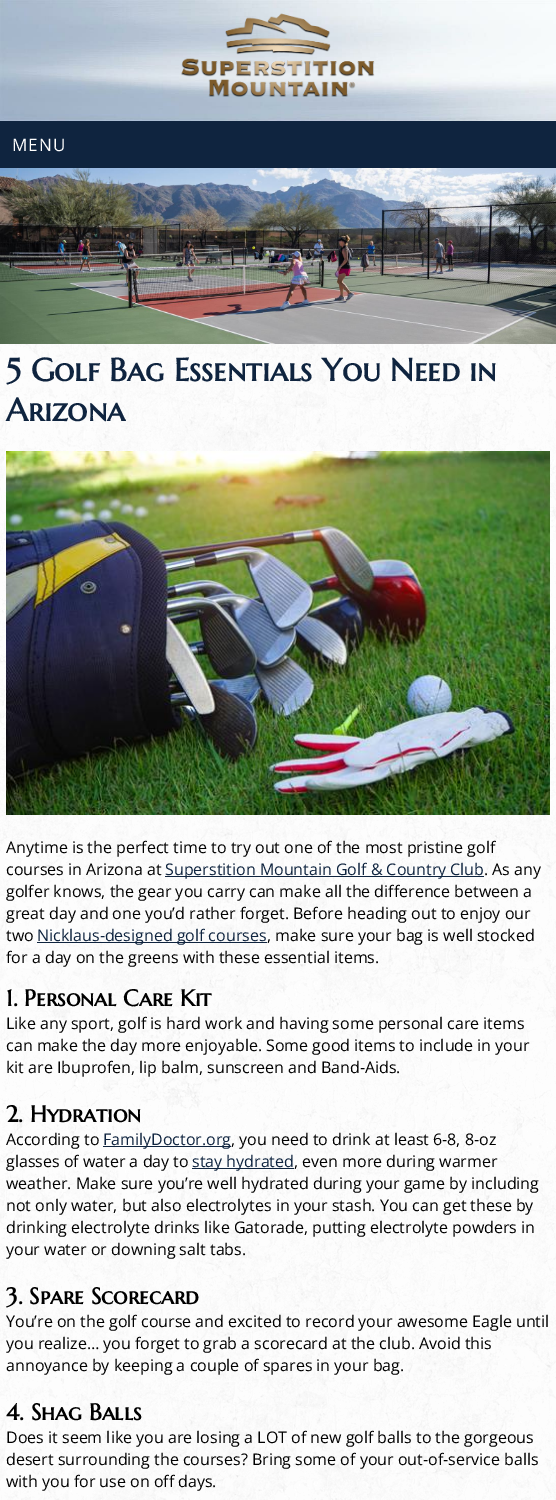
%!PS
<< /PageSize [556 1500] >> setpagedevice
/rgb { dup -16 bitshift 255 div exch dup -8 bitshift 255 and 255 div exch 255 and 255 div setrgbcolor } def
/font { [ exch dup neg 0 0 3 -1 roll 0 0 ] selectfont } def
/text { moveto show } def
/picture { 5 dict begin { /h /w /y /x /name } { exch def } forall
  gsave x y translate w h scale
  w h 8 [w 0 0 h 0 0] name (r) file false 3 colorimage grestore end } def
0 1500 translate 1 -1 scale
4 setmiterlimit
/s1 { /MarcellusSC-Bold 32 font 16#0F243F rgb } def
/s2 { /OpenSans-Regular 16 font 16#000000 rgb } def
/s3 { /OpenSans-Regular 16 font 16#0F243F rgb } def
/s4 { /MarcellusSC-Bold 23 font 16#000000 rgb } def
16#0F243F rgb
0 0 556 1500 rectfill
(pic1.raw) 0 0 556 121 picture
(pic2.raw) 181 13 194 84 picture
/OpenSans-Regular 17 font
16#FFFFFF rgb
12 151 moveto 1 0 (MENU) ashow
(pic3.raw) 0 168 556 176 picture
(pic4.raw) 0 344 556 1156 picture
s1
(5 Golf Bag Essentials You Need in) 6 381 text
(Arizona) 6 421 text
(pic5.raw) 6 451 544 364 picture
s2
(Anytime is the perfect time to try out one of the most pristine golf) 6 853 text
(courses in Arizona at) 6 875 text
16#0F243F rgb
165 876 319 1 rectfill
(Superstition Mountain Golf & Country Club) 165 875 text
s2
(. As any) 484 875 text
(golfer knows, the gear you carry can make all the difference between a) 6 897 text
(great day and one you’d rather forget. Before heading out to enjoy our) 6 919 text
(two) 6 941 text
16#0F243F rgb
37 942 230 1 rectfill
(Nicklaus-designed golf courses) 37 941 text
s2
(, make sure your bag is well stocked) 267 941 text
(for a day on the greens with these essential items.) 6 963 text
s4
(1. Personal Care Kit) 6 1006 text
s2
(Like any sport, golf is hard work and having some personal care items) 6 1029 text
(can make the day more enjoyable. Some good items to include in your) 6 1051 text
(kit are Ibuprofen, lip balm, sunscreen and Band-Aids.) 6 1073 text
s4
(2. Hydration) 6 1122 text
s2
(According to) 6 1145 text
16#0F243F rgb
103 1146 128 1 rectfill
(FamilyDoctor.org) 103 1145 text
s2
(, you need to drink at least 6-8, 8-oz) 231 1145 text
(glasses of water a day to) 6 1167 text
16#0F243F rgb
192 1168 102 1 rectfill
(stay hydrated) 192 1167 text
s2
(, even more during warmer) 294 1167 text
(weather. Make sure you’re well hydrated during your game by including) 6 1189 text
(not only water, but also electrolytes in your stash. You can get these by) 6 1211 text
(drinking electrolyte drinks like Gatorade, putting electrolyte powders in) 6 1233 text
(your water or downing salt tabs.) 6 1255 text
s4
(3. Spare Scorecard) 6 1304 text
s2
(You’re on the golf course and excited to record your awesome Eagle until) 6 1327 text
(you realize… you forget to grab a scorecard at the club. Avoid this) 6 1349 text
(annoyance by keeping a couple of spares in your bag.) 6 1371 text
s4
(4. Shag Balls) 6 1420 text
s2
(Does it seem like you are losing a LOT of new golf balls to the gorgeous) 6 1443 text
(desert surrounding the courses? Bring some of your out-of-service balls) 6 1465 text
(with you for use on off days.) 6 1487 text
showpage
